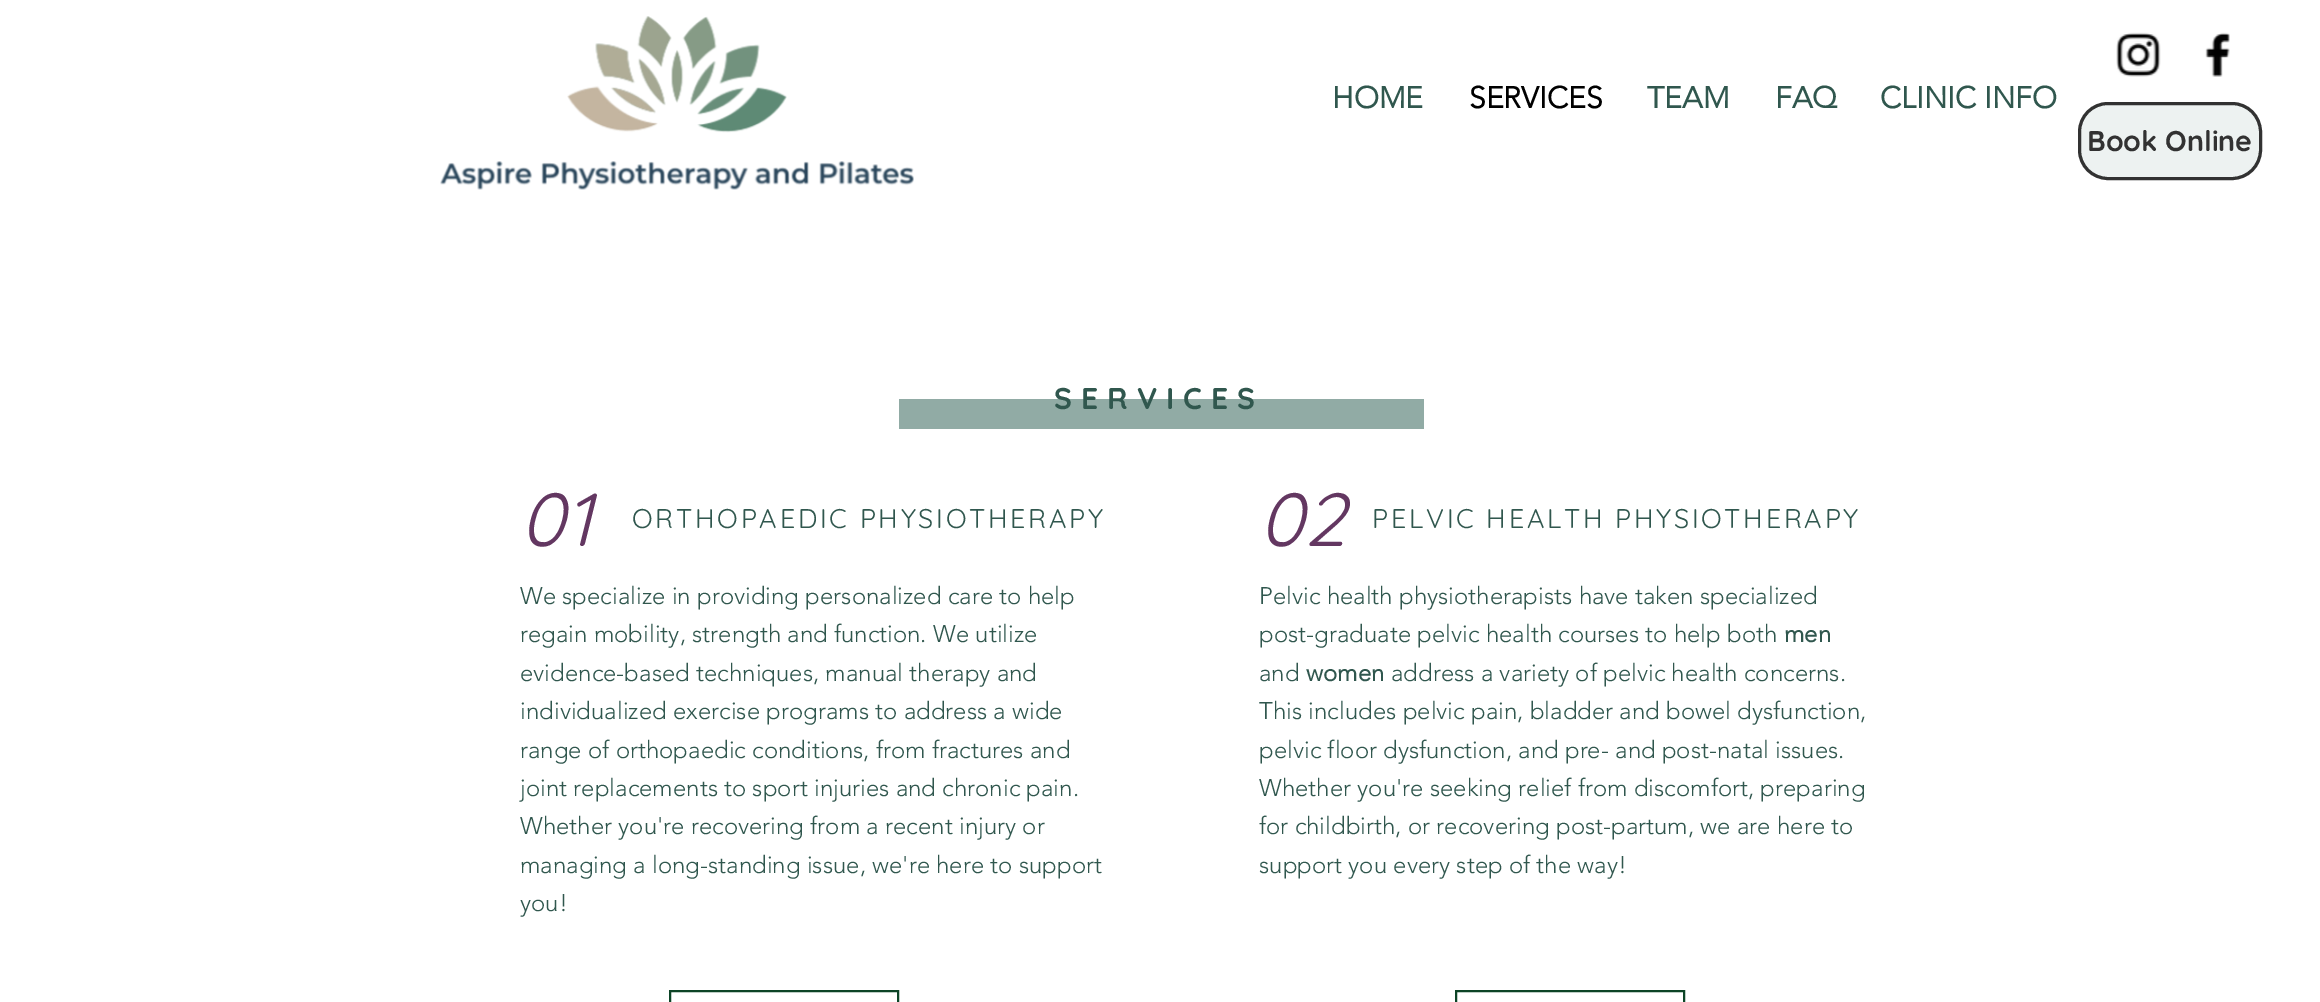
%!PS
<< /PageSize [2320 1002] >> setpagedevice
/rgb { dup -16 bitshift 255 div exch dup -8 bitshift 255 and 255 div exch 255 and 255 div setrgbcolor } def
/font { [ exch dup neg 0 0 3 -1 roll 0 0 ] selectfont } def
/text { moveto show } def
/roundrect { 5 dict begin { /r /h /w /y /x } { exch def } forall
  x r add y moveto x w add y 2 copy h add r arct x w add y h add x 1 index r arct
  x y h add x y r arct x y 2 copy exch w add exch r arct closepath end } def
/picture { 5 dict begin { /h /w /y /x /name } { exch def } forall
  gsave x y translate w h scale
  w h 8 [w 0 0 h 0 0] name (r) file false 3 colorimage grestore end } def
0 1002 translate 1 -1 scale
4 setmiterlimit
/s1 { /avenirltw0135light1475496-Bold 30 font 16#30574E rgb } def
/s2 { /avenirltw0135light1475496-Bold 30 font 16#000000 rgb } def
/s3 { /Quicksand-Bold 28.5 font 16#323232 rgb } def
/s4 { /Quicksand-Italic 75 font 16#633761 rgb } def
/s5 { /avenirltw0135light1475496-Light 24 font 16#30574E rgb } def
/s6 { /avenirltw0135light1475496-Bold 24 font 16#30574E rgb } def
16#FFFFFF rgb
0 0 2320 1002 rectfill
(pic1.raw) 440 16 474 174 picture
(pic2.raw) 2116 32 45 45 picture
(pic3.raw) 2205 32 25 45 picture
s1
(HOME) 1332 108 text
s2
(SERVICES) 1469 108 text
s1
(TEAM) 1647 108 text
(FAQ) 1775 108 text
(CLINIC INFO) 1880 108 text
16#EDF2F1 rgb
2079.5 103.5 181 75 28.5 roundrect gsave fill grestore
16#323232 rgb
3 setlinewidth
stroke
s3
(Book Online) 2087 151 text
16#91ABA5 rgb
899 399 525 30 rectfill
/Quicksand-Bold 30 font
16#30574E rgb
1054 409 moveto 9 0 (SERVICES) ashow
s4
(01) 520 546 text
/Quicksand-Regular 27 font
16#30574E rgb
632 528 moveto 2.7 0 (ORTHOPAEDIC PHYSIOTHERAPY) ashow
s4
(02) 1259 546 text
/Quicksand-Regular 27 font
16#30574E rgb
1372 528 moveto 2.7 0 (PELVIC HEALTH PHYSIOTHERAPY) ashow
s5
(We specialize in providing personalized care to help) 520 604 text
(regain mobility, strength and function. We utilize) 520 642 text
(evidence-based techniques, manual therapy and) 520 681 text
(individualized exercise programs to address a wide) 520 719 text
(range of orthopaedic conditions, from fractures and) 520 758 text
(joint replacements to sport injuries and chronic pain.) 520 796 text
(Whether you're recovering from a recent injury or) 520 834 text
(managing a long-standing issue, we're here to support) 520 873 text
(you!) 520 911 text
(Pelvic health physiotherapists have taken specialized) 1259 604 text
(post-graduate pelvic health courses to help both) 1259 642 text
s6
(men) 1784 642 text
s5
(and) 1259 681 text
s6
(women) 1306 681 text
s5
(address a variety of pelvic health concerns.) 1391 681 text
(This includes pelvic pain, bladder and bowel dysfunction,) 1259 719 text
(pelvic floor dysfunction, and pre- and post-natal issues.) 1259 758 text
(Whether you're seeking relief from discomfort, preparing) 1259 796 text
(for childbirth, or recovering post-partum, we are here to) 1259 834 text
(support you every step of the way!) 1259 873 text
16#0C4426 rgb
2 setlinewidth
670 991 228 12 rectstroke
1456 991 228 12 rectstroke
showpage
